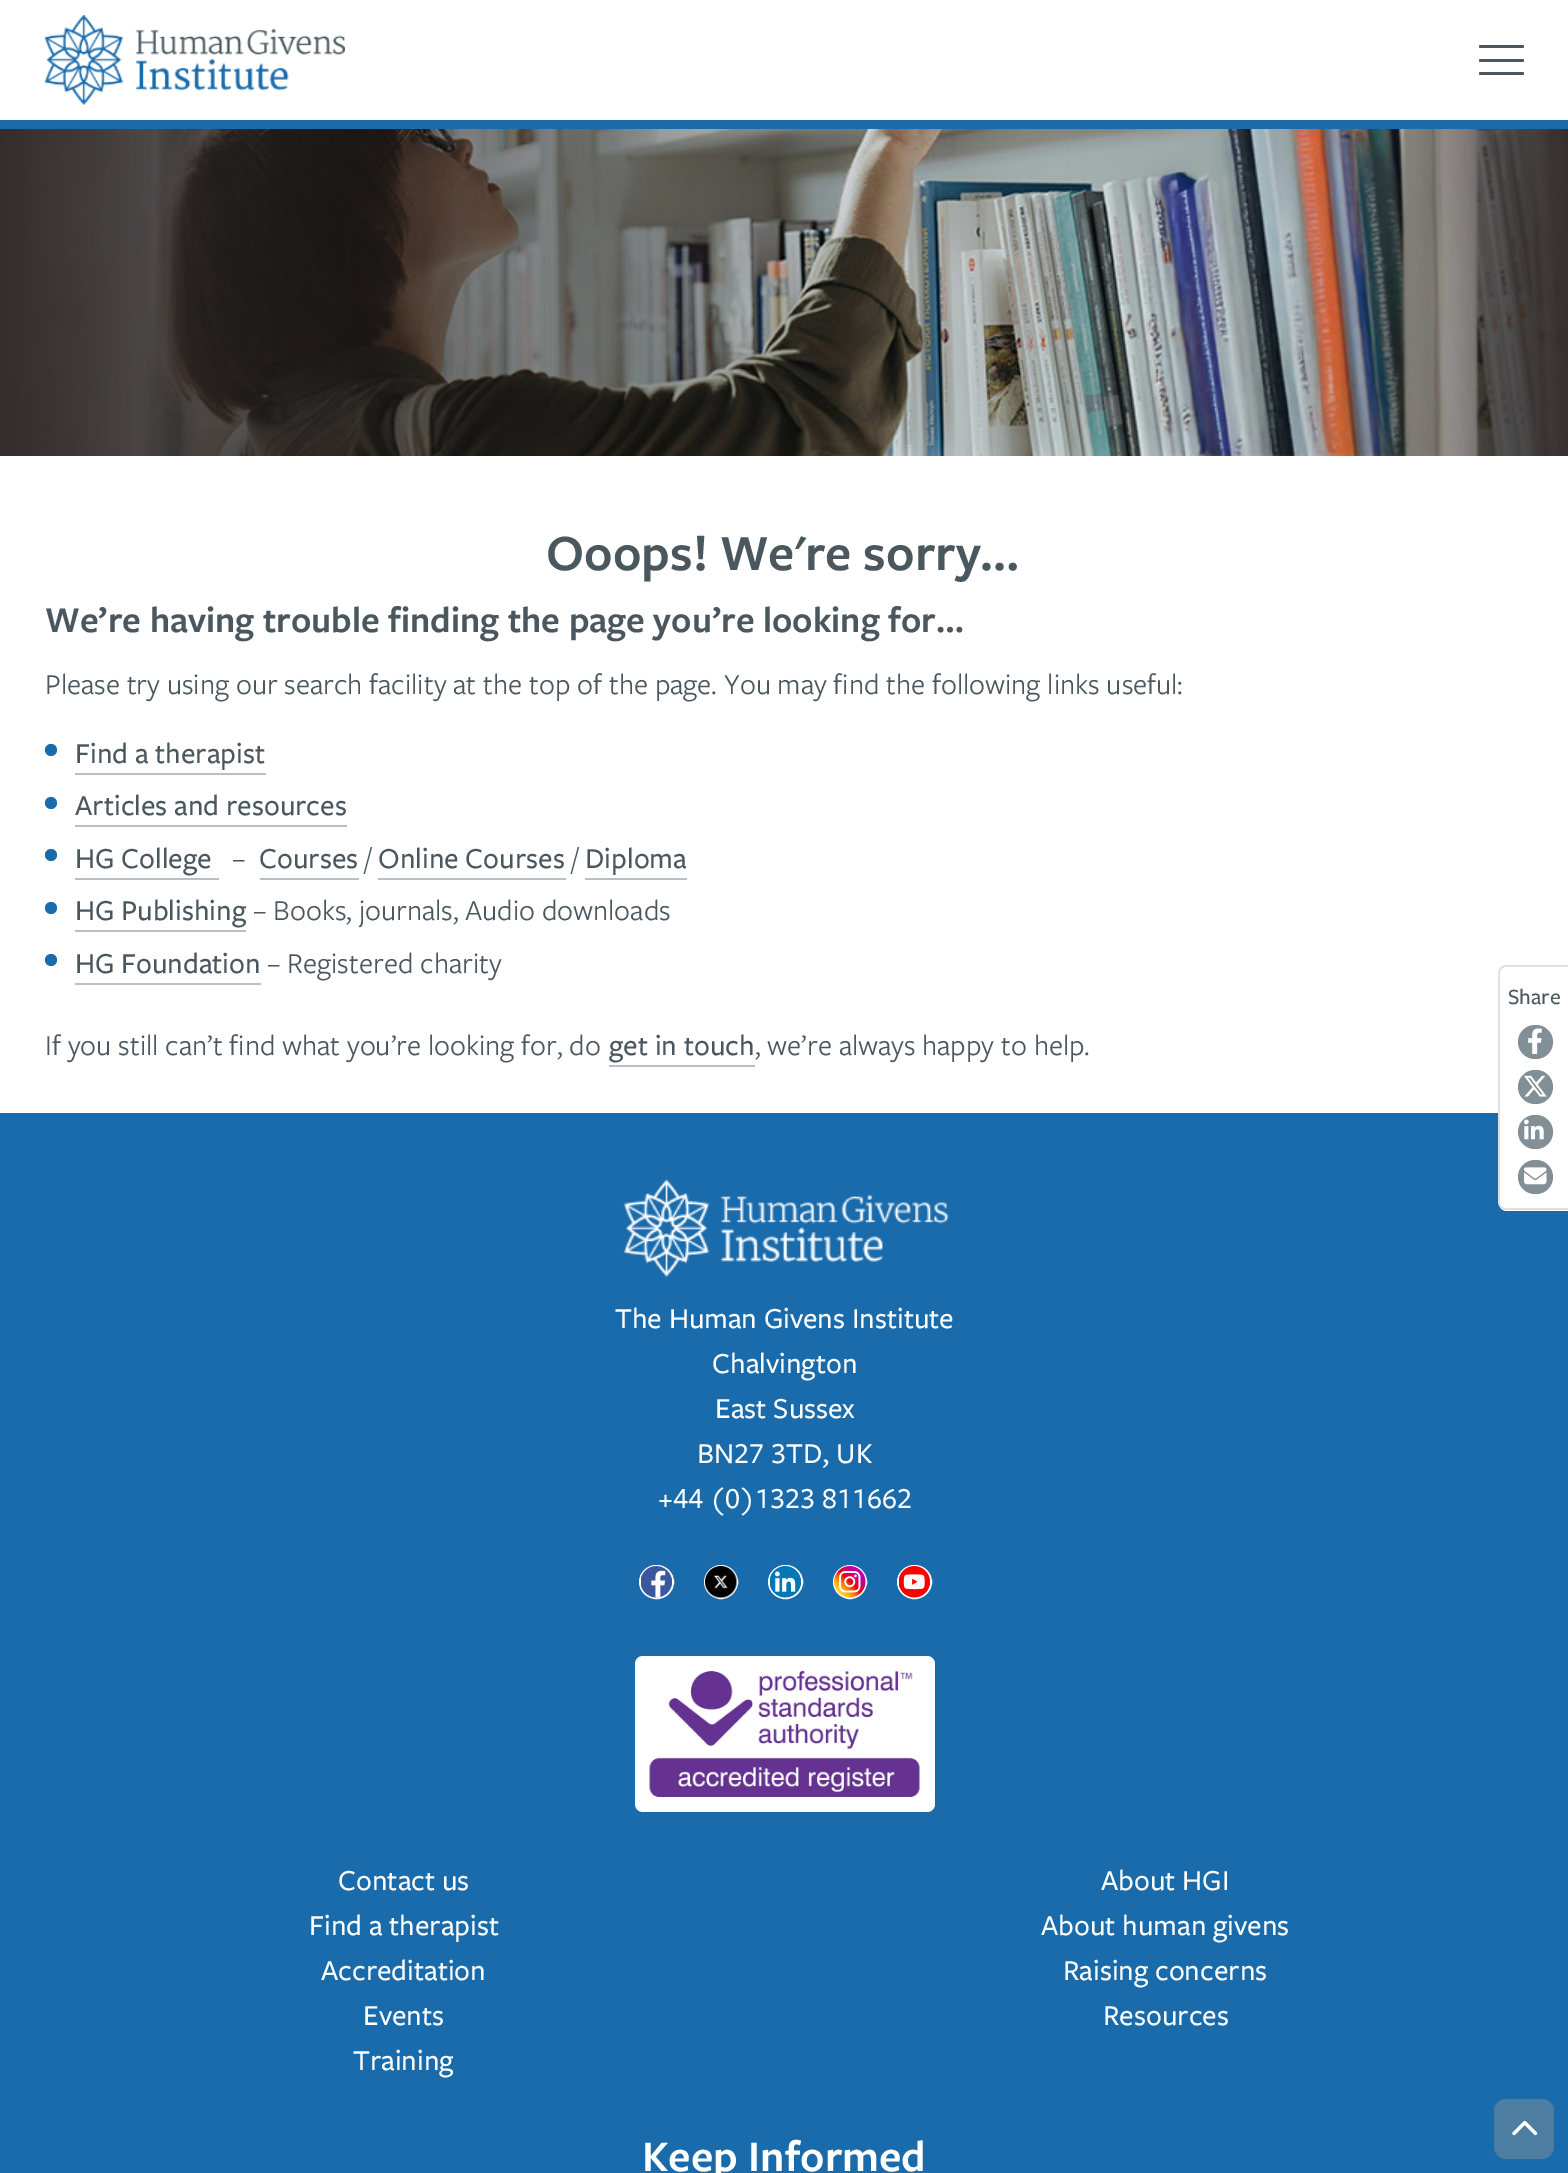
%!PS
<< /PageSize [1568 2173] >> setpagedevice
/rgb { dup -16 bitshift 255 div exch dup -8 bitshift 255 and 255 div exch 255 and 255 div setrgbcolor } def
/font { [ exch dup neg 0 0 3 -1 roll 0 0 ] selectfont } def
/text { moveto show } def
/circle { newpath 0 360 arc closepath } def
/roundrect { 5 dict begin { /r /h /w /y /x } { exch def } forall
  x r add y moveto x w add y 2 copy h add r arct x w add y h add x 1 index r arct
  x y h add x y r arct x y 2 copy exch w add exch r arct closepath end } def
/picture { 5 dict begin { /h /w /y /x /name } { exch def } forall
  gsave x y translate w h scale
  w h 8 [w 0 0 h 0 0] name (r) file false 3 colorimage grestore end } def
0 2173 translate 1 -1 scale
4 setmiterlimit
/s1 { /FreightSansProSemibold-SemiBold 52.5 font 16#4A575F rgb } def
/s2 { /FreightSansProSemibold-SemiBold 37.5 font 16#4A575F rgb } def
/s3 { /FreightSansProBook-Regular 30 font 16#4A575F rgb } def
/s4 { /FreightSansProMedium-Medium 30 font 16#4A575F rgb } def
/s5 { /FreightSansProMedium-Medium 22.5 font 16#4A575F rgb } def
/s6 { /FreightSansProMedium-Medium 30 font 16#FFFFFF rgb } def
/s7 { /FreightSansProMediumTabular-Medium 30 font 16#FFFFFF rgb } def
/s8 { /FreightSansProSemibold-SemiBold 45 font 16#FFFFFF rgb } def
16#FFFFFF rgb
0 0 1568 2173 rectfill
16#196BAC rgb
0 120 1568 9 rectfill
(pic1.raw) 45 15 300 90 picture
16#4A575F rgb
1479 45 45 3 1.5 roundrect fill
1479 59 45 3 1.5 roundrect fill
1479 72 45 3 1.5 roundrect fill
(pic2.raw) 0 129 1568 327 picture
s1
(Ooops! We're sorry…) 546 570 text
s2
(We’re having trouble finding the page you’re looking for…) 45 632 text
s3
(Please try using our search facility at the top of the page. You may find the following links useful:) 45 694 text
16#196BAC rgb
51 750 6 circle fill
s4
(Find a therapist) 75 763 text
16#BABFC2 rgb
75 773 191 2 rectfill
16#196BAC rgb
51 803 6 circle fill
s4
(Articles and resources) 75 815 text
16#BABFC2 rgb
75 825 272 2 rectfill
16#196BAC rgb
51 855 6 circle fill
s4
(HG College) 75 868 text
16#BABFC2 rgb
75 878 144 2 rectfill
s3
(–) 232 868 text
s4
(Courses) 259 868 text
16#BABFC2 rgb
260 878 99 2 rectfill
s3
(/) 365 868 text
s4
(Online Courses) 378 868 text
16#BABFC2 rgb
378 878 188 2 rectfill
s3
(/) 572 868 text
s4
(Diploma) 585 868 text
16#BABFC2 rgb
585 878 102 2 rectfill
16#196BAC rgb
51 908 6 circle fill
s4
(HG Publishing) 75 920 text
16#BABFC2 rgb
75 930 171 2 rectfill
s3
(– Books, journals, Audio downloads) 253 920 text
16#196BAC rgb
51 960 6 circle fill
s4
(HG Foundation) 75 973 text
16#BABFC2 rgb
75 983 186 2 rectfill
s3
(– Registered charity) 267 973 text
(If you still can’t find what you’re looking for, do) 45 1055 text
s4
(get in touch) 609 1055 text
16#BABFC2 rgb
609 1065 146 2 rectfill
s3
(, we’re always happy to help.) 755 1055 text
16#196BAC rgb
0 1113 1568 1060 rectfill
16#FFFFFF rgb
1507 966 moveto 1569 966 lineto 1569 1211 lineto 1507 1211 lineto 1502.5 1211 1499 1207.5 1499 1203 curveto 1499 974 lineto 1499 969.5 1502.5 966 1507 966 curveto closepath fill
16#DEE2E6 rgb
1506 965 moveto 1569 965 lineto 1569 1210 lineto 1506 1210 lineto 1502 1210 1498 1206 1498 1202 curveto 1498 973 lineto 1498 969 1502 965 1506 965 curveto closepath 1506 967 moveto 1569 967 lineto 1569 1208 lineto 1506 1208 lineto 1503 1208 1500 1206 1500 1202 curveto 1500 973 lineto 1500 969 1503 967 1506 967 curveto closepath eofill
s5
(Share) 1508 1004 text
16#828F97 rgb
1518 1025 35 34 17 roundrect fill
(pic3.raw) 1528 1028 14 26 picture
1518 1070 35 34 17 roundrect fill
(pic4.raw) 1524 1075 23 22 picture
1518 1115 35 34 17 roundrect fill
(pic5.raw) 1524 1119 20 21 picture
1518 1160 35 34 17 roundrect fill
(pic6.raw) 1524 1167 23 18 picture
(pic7.raw) 623 1178 326 99 picture
s6
(The Human Givens Institute) 615 1328 text
(Chalvington) 712 1373 text
(East Sussex) 715 1418 text
s7
(BN27 3TD, UK) 697 1463 text
(+44 \(0\)1323 811662) 658 1508 text
2 setlinewidth
640 1566 33 32 16 roundrect stroke
(pic8.raw) 641 1566 31 32 picture
721 1582 16 circle stroke
(pic9.raw) 705 1566 32 32 picture
769 1566 33 32 16 roundrect stroke
(pic10.raw) 770 1566 31 32 picture
850 1582 16 circle stroke
(pic11.raw) 834 1566 32 32 picture
898 1566 33 32 16 roundrect stroke
(pic12.raw) 899 1566 31 32 picture
635 1656 300 156 8 roundrect fill
(pic13.raw) 649 1671 271 126 picture
s6
(Contact us) 338 1890 text
(About HGI) 1101 1890 text
(Find a therapist) 309 1935 text
(About human givens) 1041 1935 text
(Accreditation) 321 1980 text
(Raising concerns) 1063 1980 text
(Events) 363 2025 text
(Resources) 1103 2025 text
(Training) 353 2070 text
s8
(Keep Informed) 642 2171 text
16#4E7DA2 rgb
1494 2099 60 60 12 roundrect fill
(pic14.raw) 1512 2120 26 16 picture
showpage
